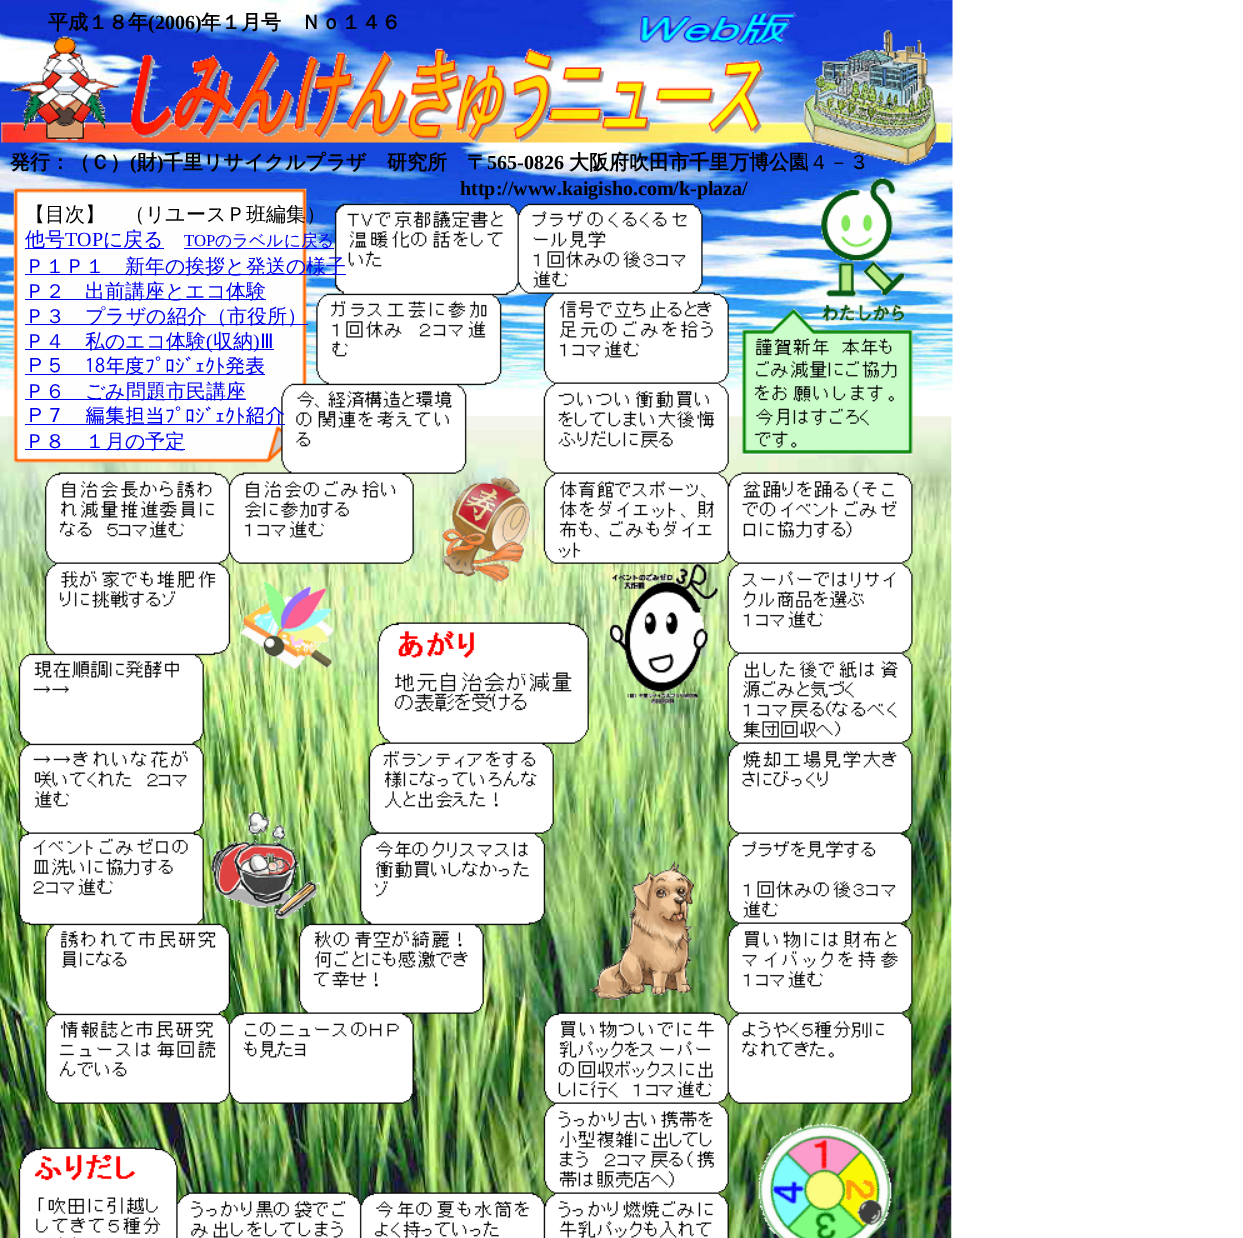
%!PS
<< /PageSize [1243 1238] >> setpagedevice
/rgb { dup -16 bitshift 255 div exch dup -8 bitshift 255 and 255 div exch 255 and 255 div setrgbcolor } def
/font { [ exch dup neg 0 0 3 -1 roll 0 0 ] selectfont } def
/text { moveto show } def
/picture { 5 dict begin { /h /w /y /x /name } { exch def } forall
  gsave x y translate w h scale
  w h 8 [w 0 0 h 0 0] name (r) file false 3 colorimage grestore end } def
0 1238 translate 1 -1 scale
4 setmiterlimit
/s1 { /WenQuanYiZenHei-Bold 20 font 16#000000 rgb } def
/s2 { /LiberationSerif-Bold 20 font 16#000000 rgb } def
/s3 { /WenQuanYiZenHei-Medium 20 font 16#000000 rgb } def
/s4 { /WenQuanYiZenHei-Medium 20 font 16#0000EE rgb } def
/s5 { /LiberationSerif-Regular 20 font 16#0000EE rgb } def
/s6 { /LiberationSerif-Regular 16.75 font 16#0000EE rgb } def
/s7 { /WenQuanYiZenHei-Medium 16.75 font 16#0000EE rgb } def
/s8 { /DejaVuSans-Regular 20 font 16#0000EE rgb } def
/s9 { /IPAGothic-Regular 20 font 16#0000EE rgb } def
16#FFFFFF rgb
0 0 1243 1238 rectfill
(pic1.raw) 0 0 953 400 picture
s1
(平成１８年) 48 29 text
s2
(\(2006\)) 148 29 text
s1
(年１月号　Ｎｏ１４６) 201 29 text
(pic2.raw) 639 11 158 35 picture
(pic6.raw) 1 122 951 21 picture
(pic3.raw) 11 36 108 105 picture
(pic4.raw) 131 48 633 95 picture
(大阪府吹田市千里万博公園４－３) 569 169 text
(pic5.raw) 803 29 134 137 picture
(発行：（Ｃ）) 10 169 text
s2
(\() 130 169 text
s1
(財) 137 169 text
s2
(\)) 157 169 text
s1
(千里リサイクルプラザ　研究所　〒) 163 169 text
s2
(565-0826) 487 169 text
(http://www.kaigisho.com/k-plaza/) 460 195 text
(pic11.raw) 0 416 952 822 picture
(pic7.raw) 13 188 294 275 picture
(pic9.raw) 18 203 895 1035 picture
(pic8.raw) 821 177 85 145 picture
s3
(【目次】　（リユースＰ班編集）) 25 221 text
16#0000EE rgb
25 248 139 1 rectfill
(他号) 25 246 text
s5
(TOP) 65 246 text
s4
(に戻る) 103 246 text
s6
(TOP) 184 246 text
184 248 150 1 rectfill
s7
(のラベルに戻る) 215 246 text
25 274 321 1 rectfill
s4
(Ｐ１Ｐ１　新年の挨拶と発送の様子) 25 273 text
25 299 241 1 rectfill
(Ｐ２　出前講座とエコ体験) 25 298 text
25 324 283 1 rectfill
(Ｐ３　プラザの紹介（市役所）) 25 323 text
25 349 249 1 rectfill
(Ｐ４　私のエコ体験) 25 348 text
s5
(\() 206 348 text
s4
(収納) 213 348 text
s5
(\)) 253 348 text
s8
(Ⅲ) 260 348 text
25 374 240 1 rectfill
s9
(Ｐ５　18年度ﾌﾟﾛｼﾞｪｸﾄ発表) 25 373 text
25 399 221 1 rectfill
s4
(Ｐ６　ごみ問題市民講座) 25 398 text
25 424 260 1 rectfill
s9
(Ｐ７　編集担当ﾌﾟﾛｼﾞｪｸﾄ紹介) 25 423 text
25 449 160 1 rectfill
s4
(Ｐ８　１月の予定) 25 448 text
(pic10.raw) 742 308 171 147 picture
(pic12.raw) 442 477 88 106 picture
(pic13.raw) 239 581 95 88 picture
(pic14.raw) 609 563 109 141 picture
(pic15.raw) 211 811 109 108 picture
(pic16.raw) 589 861 105 140 picture
(pic17.raw) 758 1123 134 115 picture
showpage
